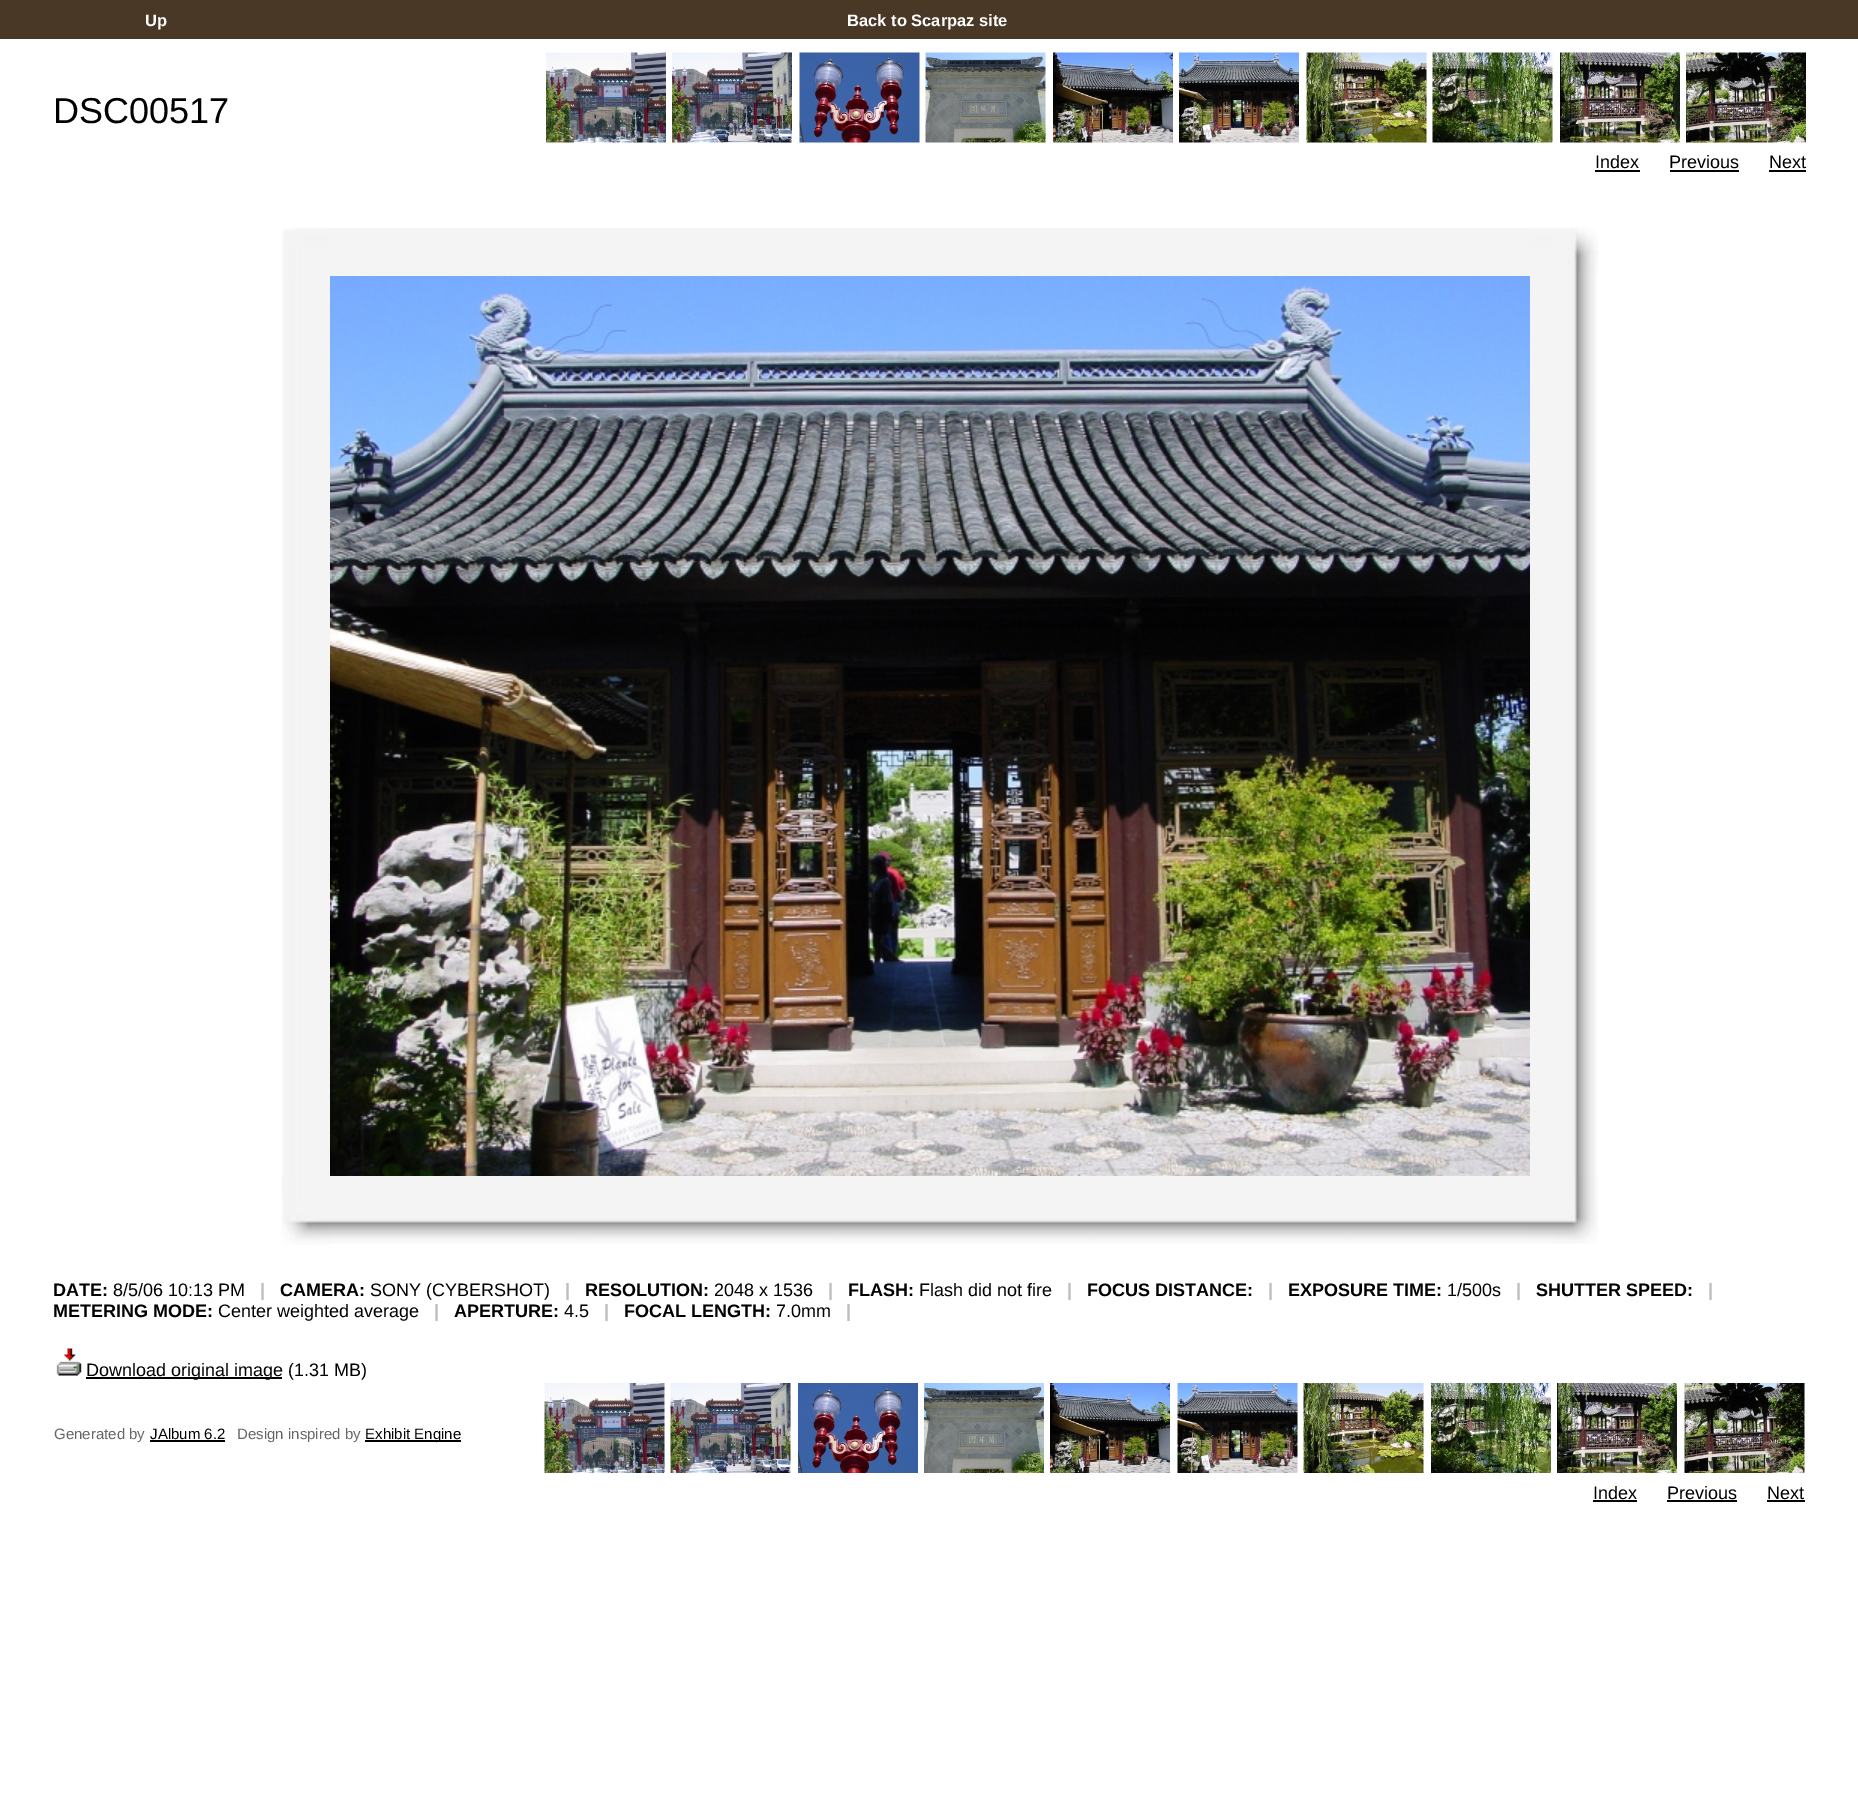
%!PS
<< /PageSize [1858 1804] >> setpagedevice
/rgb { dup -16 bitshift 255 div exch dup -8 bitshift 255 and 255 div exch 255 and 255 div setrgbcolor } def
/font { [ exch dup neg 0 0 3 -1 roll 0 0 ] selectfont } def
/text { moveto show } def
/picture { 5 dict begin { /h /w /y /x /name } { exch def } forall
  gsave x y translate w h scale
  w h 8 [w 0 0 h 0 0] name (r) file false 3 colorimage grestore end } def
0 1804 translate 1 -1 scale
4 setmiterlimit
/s1 { /LiberationSans-Bold 16.5 font 16#FFFFFF rgb } def
/s2 { /LiberationSans-Regular 36 font 16#000000 rgb } def
/s3 { /LiberationSans-Regular 18 font 16#000000 rgb } def
/s4 { /LiberationSans-Bold 18 font 16#000000 rgb } def
/s5 { /LiberationSans-Bold 18 font 16#C0C0C0 rgb } def
/s6 { /LiberationSans-Regular 15 font 16#666666 rgb } def
/s7 { /LiberationSans-Regular 15 font 16#000000 rgb } def
16#FFFFFF rgb
0 0 1858 1804 rectfill
16#4A3826 rgb
0 0 1858 39 rectfill
s1
(Up) 145 26 text
(Back to Scarpaz site) 847 26 text
s2
(DSC00517) 53 123 text
(pic1.raw) 546 52 120 91 picture
(pic2.raw) 672 52 120 91 picture
(pic3.raw) 799 52 121 91 picture
(pic4.raw) 925 52 121 91 picture
(pic5.raw) 1053 52 120 91 picture
(pic6.raw) 1179 52 120 91 picture
(pic7.raw) 1306 52 121 91 picture
(pic8.raw) 1432 52 121 91 picture
(pic9.raw) 1560 52 120 91 picture
(pic10.raw) 1686 52 120 91 picture
s3
(Index) 1595 168 text
1595 170 45 2 rectfill
(Previous) 1669 168 text
1670 170 69 2 rectfill
(Next) 1769 168 text
1769 170 37 2 rectfill
(pic11.raw) 282 227 48 49 picture
16#F4F4F4 rgb
330 228 1200 48 rectfill
(pic12.raw) 1530 227 68 49 picture
(pic13.raw) 282 276 48 900 picture
(pic14.raw) 330 276 1200 900 picture
(pic15.raw) 1530 276 67 900 picture
(pic16.raw) 281 1176 49 69 picture
(pic17.raw) 330 1176 1200 68 picture
(pic18.raw) 1530 1176 68 68 picture
s4
(DATE:) 53 1296 text
s3
(8/5/06 10:13 PM) 113 1296 text
s5
(|) 260 1296 text
s4
(CAMERA:) 280 1296 text
s3
(SONY \(CYBERSHOT\)) 370 1296 text
s5
(|) 565 1296 text
s4
(RESOLUTION:) 585 1296 text
s3
(2048 x 1536) 714 1296 text
s5
(|) 828 1296 text
s4
(FLASH:) 848 1296 text
s3
(Flash did not fire) 919 1296 text
s5
(|) 1067 1296 text
s4
(FOCUS DISTANCE:) 1087 1296 text
s5
(|) 1268 1296 text
s4
(EXPOSURE TIME:) 1288 1296 text
s3
(1/500s) 1447 1296 text
s5
(|) 1516 1296 text
s4
(SHUTTER SPEED:) 1536 1296 text
s5
(|) 1708 1296 text
s4
(METERING MODE:) 53 1317 text
s3
(Center weighted average) 218 1317 text
s5
(|) 434 1317 text
s4
(APERTURE:) 454 1317 text
s3
(4.5) 564 1317 text
s5
(|) 604 1317 text
s4
(FOCAL LENGTH:) 624 1317 text
s3
(7.0mm) 776 1317 text
s5
(|) 846 1317 text
(pic19.raw) 56 1348 26 28 picture
16#000000 rgb
86 1377 196 2 rectfill
s3
(Download original image \(1.31 MB\)) 86 1376 text
s6
(Generated by) 54 1439 text
s7
(JAlbum 6.2) 150 1439 text
150 1440 75 2 rectfill
s6
(Design inspired by) 237 1439 text
16#000000 rgb
365 1440 96 2 rectfill
(Exhibit Engine) 365 1439 text
(pic20.raw) 544 1383 121 90 picture
(pic21.raw) 670 1383 121 90 picture
(pic22.raw) 798 1383 120 90 picture
(pic23.raw) 924 1383 120 90 picture
(pic24.raw) 1050 1383 120 90 picture
(pic25.raw) 1177 1383 121 90 picture
(pic26.raw) 1303 1383 121 90 picture
(pic27.raw) 1431 1383 120 90 picture
(pic28.raw) 1557 1383 120 90 picture
(pic29.raw) 1684 1383 121 90 picture
s3
(Index) 1593 1499 text
1593 1500 44 2 rectfill
(Previous) 1667 1499 text
1667 1500 70 2 rectfill
(Next) 1767 1499 text
1767 1500 38 2 rectfill
showpage
